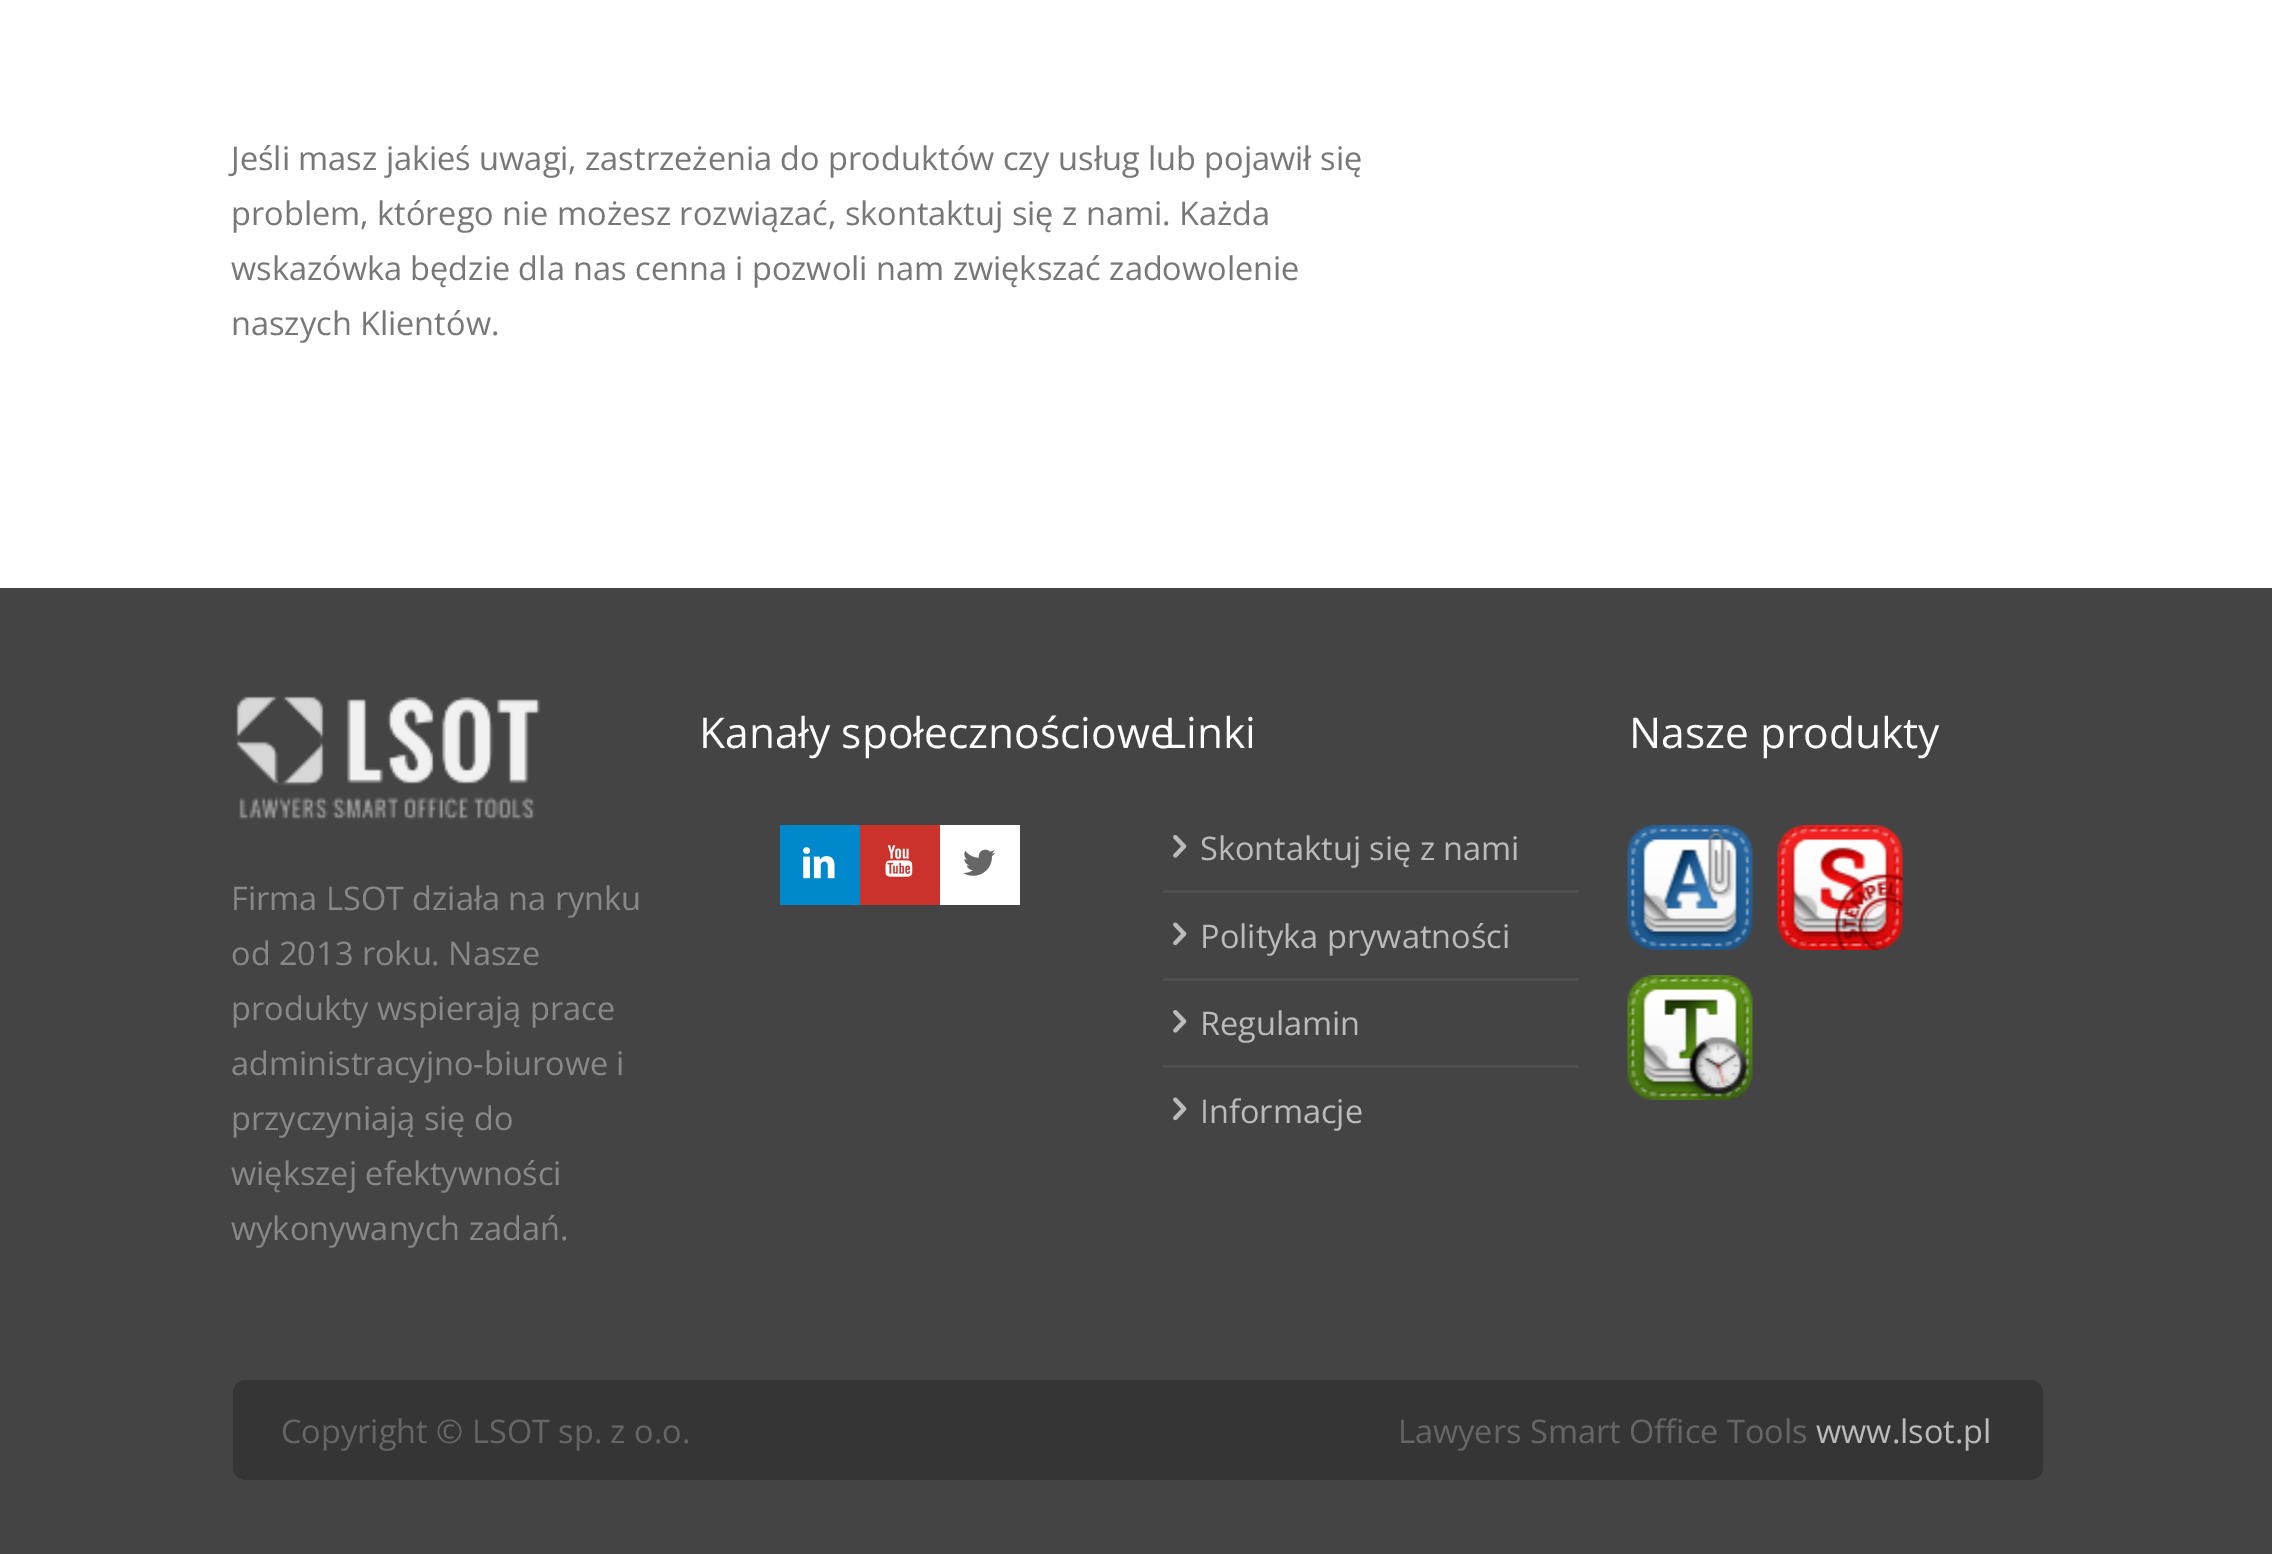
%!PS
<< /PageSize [2272 1554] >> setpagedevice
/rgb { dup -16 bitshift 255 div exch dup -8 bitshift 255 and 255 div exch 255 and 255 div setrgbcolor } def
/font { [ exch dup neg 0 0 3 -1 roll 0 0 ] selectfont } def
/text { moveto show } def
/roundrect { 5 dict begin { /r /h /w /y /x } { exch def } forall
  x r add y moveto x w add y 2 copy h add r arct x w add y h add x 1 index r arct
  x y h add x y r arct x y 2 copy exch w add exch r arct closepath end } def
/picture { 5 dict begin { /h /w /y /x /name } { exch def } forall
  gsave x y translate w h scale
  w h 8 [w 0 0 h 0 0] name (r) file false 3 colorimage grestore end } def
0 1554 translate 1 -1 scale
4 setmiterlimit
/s1 { /OpenSans-Regular 32.5 font 16#777777 rgb } def
/s2 { /OpenSans-Regular 42.5 font 16#FDFDFD rgb } def
/s3 { /OpenSans-Regular 32.5 font 16#BBBBBB rgb } def
/s4 { /OpenSans-Regular 32.5 font 16#888888 rgb } def
/s5 { /OpenSans-Regular 32.5 font 16#666666 rgb } def
16#FFFFFF rgb
0 0 2272 1554 rectfill
s1
(Jeśli masz jakieś uwagi, zastrzeżenia do produktów czy usług lub pojawił się) 231 170 text
(problem, którego nie możesz rozwiązać, skontaktuj się z nami. Każda) 231 225 text
(wskazówka będzie dla nas cenna i pozwoli nam zwiększać zadowolenie) 231 280 text
(naszych Klientów.) 231 335 text
16#444444 rgb
0 588 2272 966 rectfill
s2
(Kanały społecznościowe) 699 748 text
16#0088CC rgb
780 825 80 80 rectfill
(pic1.raw) 803 847 32 32 picture
16#CB322C rgb
860 825 80 80 rectfill
(pic2.raw) 885 845 28 32 picture
16#FFFFFF rgb
940 825 80 80 rectfill
(pic3.raw) 963 849 32 27 picture
s2
(Linki) 1164 748 text
16#4F4F4F rgb
1163 890 415 3 rectfill
(pic4.raw) 1173 835 14 23 picture
s3
(Skontaktuj się z nami) 1200 860 text
16#4F4F4F rgb
1163 978 415 3 rectfill
(pic5.raw) 1173 922 14 24 picture
s3
(Polityka prywatności) 1200 948 text
16#4F4F4F rgb
1163 1065 415 3 rectfill
(pic4.raw) 1173 1010 14 23 picture
s3
(Regulamin) 1200 1035 text
(pic5.raw) 1173 1097 14 24 picture
(Informacje) 1200 1123 text
s2
(Nasze produkty) 1629 748 text
(pic6.raw) 1627 825 126 125 picture
(pic7.raw) 1777 825 126 125 picture
(pic8.raw) 1627 975 126 125 picture
(pic9.raw) 235 696 306 124 picture
s4
(Firma LSOT działa na rynku) 231 910 text
(od 2013 roku. Nasze) 231 965 text
(produkty wspierają prace) 231 1020 text
(administracyjno-biurowe i) 231 1075 text
(przyczyniają się do) 231 1130 text
(większej efektywności) 231 1185 text
(wykonywanych zadań.) 231 1240 text
16#353535 rgb
233 1380 1810 100 13 roundrect fill
s5
(Copyright © LSOT sp. z o.o.) 281 1443 text
(Lawyers Smart Office Tools) 1398 1443 text
s3
(www.lsot.pl) 1816 1443 text
showpage
